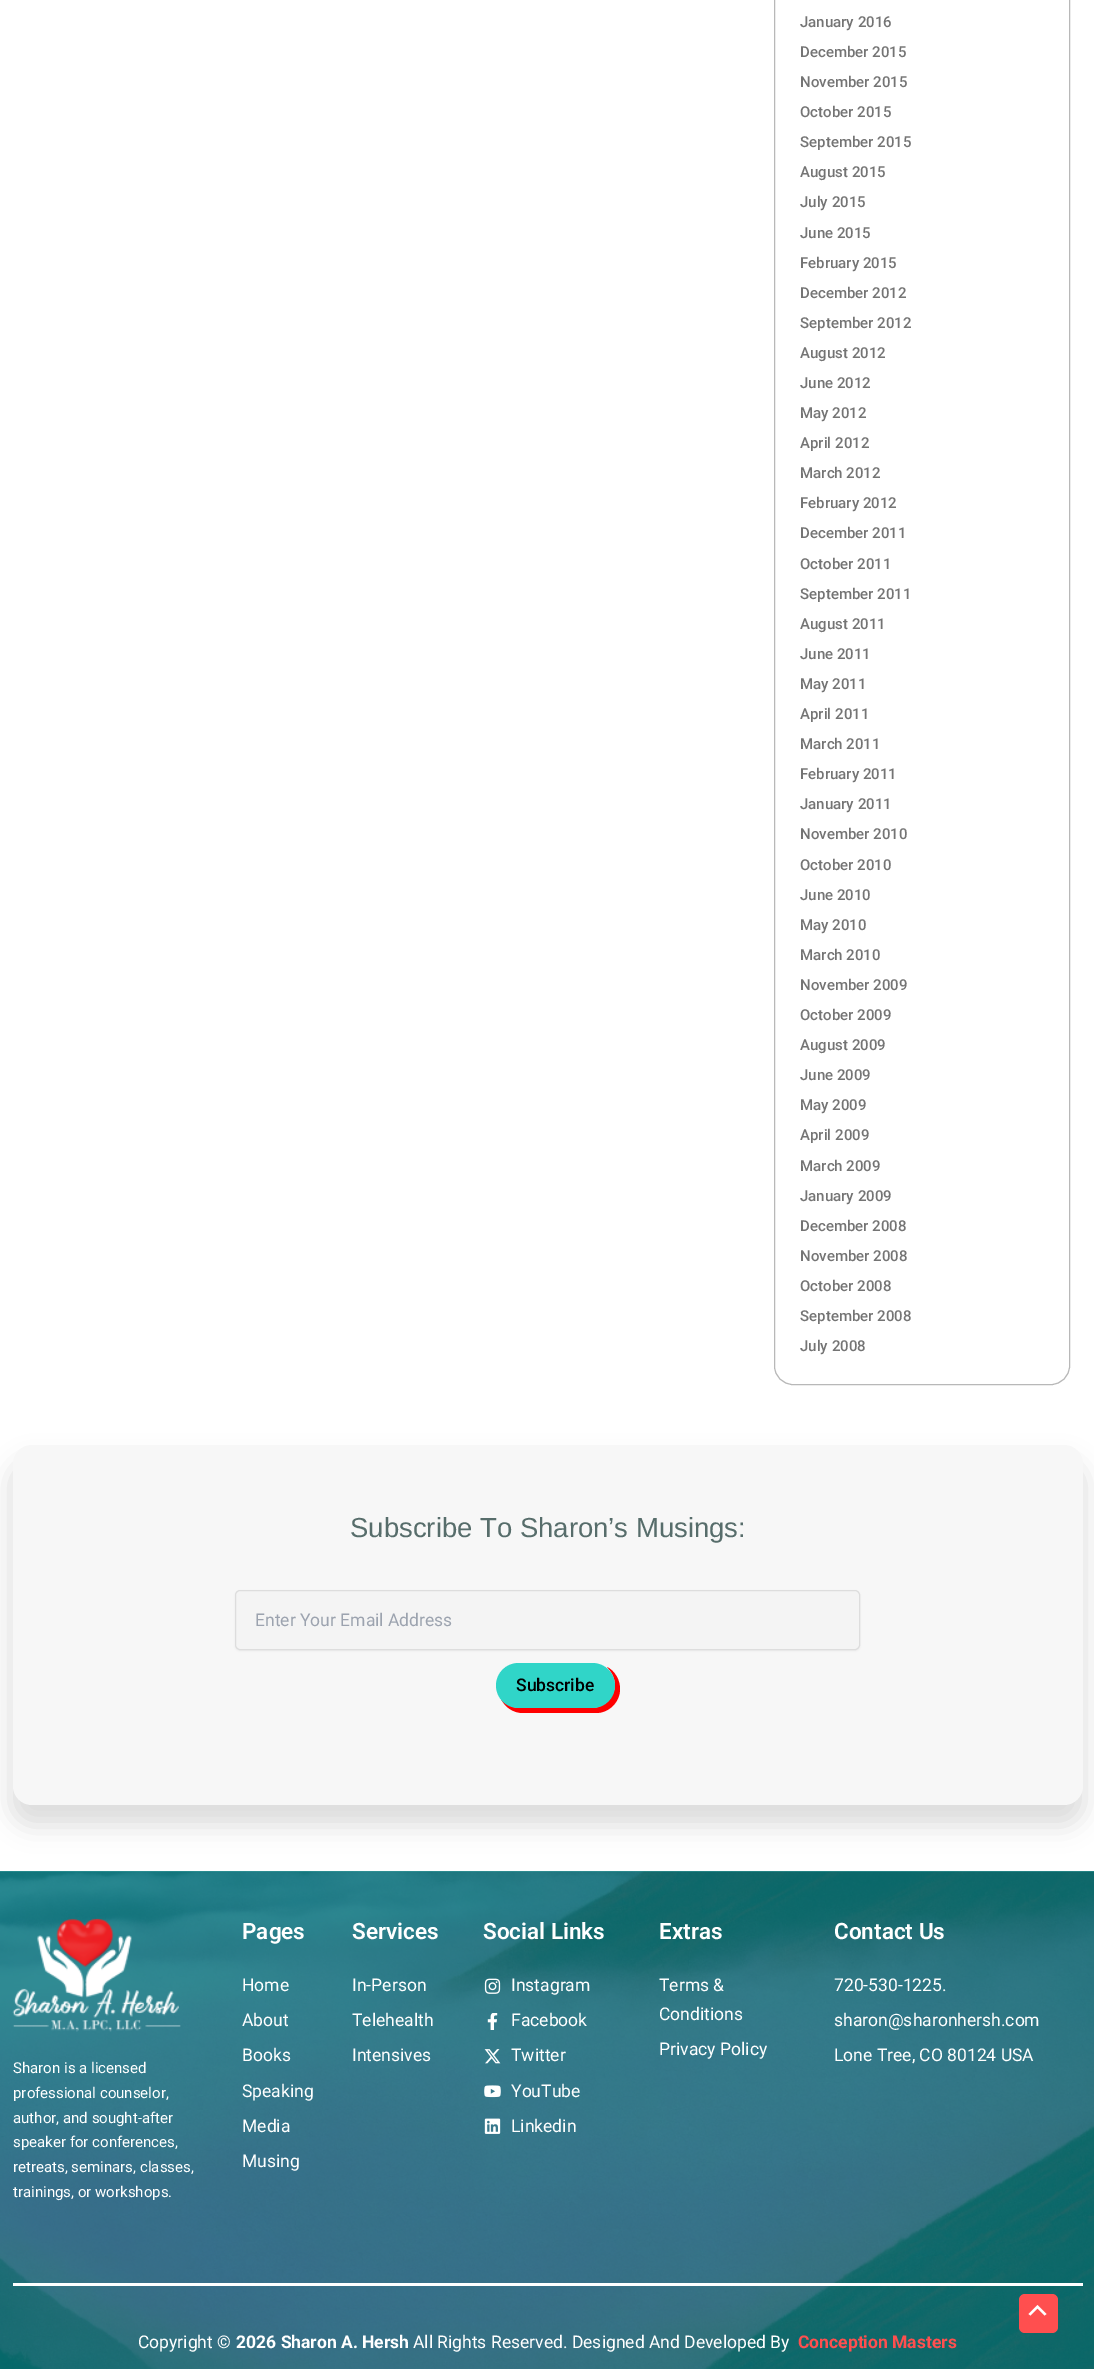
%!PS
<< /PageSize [1094 2369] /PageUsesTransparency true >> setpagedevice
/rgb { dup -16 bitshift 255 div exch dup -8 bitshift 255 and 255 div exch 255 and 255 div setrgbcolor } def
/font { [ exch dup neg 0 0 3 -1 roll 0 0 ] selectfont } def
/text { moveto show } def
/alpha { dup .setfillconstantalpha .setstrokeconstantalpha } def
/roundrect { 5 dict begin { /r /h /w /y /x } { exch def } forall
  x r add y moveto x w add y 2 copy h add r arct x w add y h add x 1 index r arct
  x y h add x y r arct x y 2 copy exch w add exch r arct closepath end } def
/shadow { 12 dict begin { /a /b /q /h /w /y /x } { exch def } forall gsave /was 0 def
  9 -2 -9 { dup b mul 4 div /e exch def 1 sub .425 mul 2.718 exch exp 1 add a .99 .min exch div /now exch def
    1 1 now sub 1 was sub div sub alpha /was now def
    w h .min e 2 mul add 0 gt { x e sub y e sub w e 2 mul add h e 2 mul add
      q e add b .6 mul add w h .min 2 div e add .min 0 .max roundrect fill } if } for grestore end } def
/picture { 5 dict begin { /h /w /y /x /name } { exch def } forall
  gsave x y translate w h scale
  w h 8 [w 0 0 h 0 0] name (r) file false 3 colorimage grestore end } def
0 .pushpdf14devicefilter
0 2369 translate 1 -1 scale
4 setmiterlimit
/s1 { /Roboto-Medium 15 font 16#747474 rgb } def
/s2 { /LiberationSans-Regular 27.5 font 16#576D6B rgb } def
/s3 { /Roboto-Regular 17.5 font 16#9CA3AF rgb } def
/s4 { /Roboto-Medium 17.5 font 16#000000 rgb } def
/s5 { /Roboto-SemiBold 22.5 font 16#FFFFFF rgb } def
/s6 { /Roboto-Regular 17.5 font 16#FFFFFF rgb } def
/s7 { /Roboto-Regular 15 font 16#FFFFFF rgb } def
/s8 { /Roboto-Bold 17.5 font 16#FFFFFF rgb } def
/s9 { /Roboto-Bold 17.5 font 16#FF4F4F rgb } def
16#FFFFFF rgb
0 0 1094 2369 rectfill
16#389C9C rgb
0 1871 1094 1 rectfill
16#B8B8B8 rgb
774.5 -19.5 295 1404 18.5 roundrect stroke
s1
(January 2016) 800 27 text
(December 2015) 800 57 text
(November 2015) 800 87 text
(October 2015) 800 117 text
(September 2015) 800 147 text
(August 2015) 800 177 text
(July 2015) 800 207 text
(June 2015) 800 238 text
(February 2015) 800 268 text
(December 2012) 800 298 text
(September 2012) 800 328 text
(August 2012) 800 358 text
(June 2012) 800 388 text
(May 2012) 800 418 text
(April 2012) 800 448 text
(March 2012) 800 478 text
(February 2012) 800 508 text
(December 2011) 800 538 text
(October 2011) 800 569 text
(September 2011) 800 599 text
(August 2011) 800 629 text
(June 2011) 800 659 text
(May 2011) 800 689 text
(April 2011) 800 719 text
(March 2011) 800 749 text
(February 2011) 800 779 text
(January 2011) 800 809 text
(November 2010) 800 839 text
(October 2010) 800 870 text
(June 2010) 800 900 text
(May 2010) 800 930 text
(March 2010) 800 960 text
(November 2009) 800 990 text
(October 2009) 800 1020 text
(August 2009) 800 1050 text
(June 2009) 800 1080 text
(May 2009) 800 1110 text
(April 2009) 800 1140 text
(March 2009) 800 1171 text
(January 2009) 800 1201 text
(December 2008) 800 1231 text
(November 2008) 800 1261 text
(October 2008) 800 1291 text
(September 2008) 800 1321 text
(July 2008) 800 1351 text
16#B9B9B9 rgb
10 1461 1075 365 21 12.5 0.5 shadow
16#F7F7F7 rgb
13 1445 1070 360 19 roundrect fill
s2
(Subscribe To Sharon’s Musings:) 350 1537 text
16#000000 rgb
235 1591 625 60 5 1 0.05 shadow
16#F4F4F4 rgb
235.5 1590.5 624 59 4.5 roundrect gsave fill grestore
16#DDDDDD rgb
stroke
s3
(Enter Your Email Address) 255 1626 text
16#FF0000 rgb
501 1699 moveto 505 1707 513 1713 523 1713 curveto 596 1713 lineto 609 1713 620 1702 620 1689 curveto 620 1680 615 1671 607 1667 curveto 612 1672 615 1678 615 1685 curveto 615 1697 605 1708 592 1708 curveto 519 1708 lineto 512 1708 505 1704 501 1699 curveto closepath fill
16#30D5C8 rgb
496 1663 119 45 22.5 roundrect fill
s4
(Subscribe) 516 1691 text
(pic1.raw) 0 1871 1094 498 picture
s5
(Pages) 242 1939 text
s6
(Home) 242 1991 text
(About) 242 2026 text
(Books) 242 2061 text
(Speaking) 242 2097 text
(Media) 242 2132 text
(Musing) 242 2167 text
s5
(Services) 352 1939 text
s6
(In-Person) 352 1991 text
(Telehealth) 352 2026 text
(Intensives) 352 2061 text
s5
(Social Links) 483 1939 text
(pic2.raw) 484 1978 17 16 picture
s6
(Instagram) 511 1991 text
(pic3.raw) 487 2013 11 17 picture
(Facebook) 511 2026 text
(pic4.raw) 484 2049 17 15 picture
(Twitter) 511 2061 text
(pic5.raw) 484 2085 17 13 picture
(YouTube) 511 2097 text
(pic6.raw) 484 2118 17 16 picture
(Linkedin) 511 2132 text
s5
(Extras) 659 1939 text
s6
(Terms &) 659 1991 text
(Conditions) 659 2020 text
(Privacy Policy) 659 2055 text
s5
(Contact Us) 834 1939 text
s6
(720-530-1225.) 834 1991 text
(sharon@sharonhersh.com) 834 2026 text
(Lone Tree, CO 80124 USA) 834 2061 text
(pic7.raw) 12 1918 169 114 picture
s7
(Sharon is a licensed) 13 2073 text
(professional counselor,) 13 2098 text
(author, and sought-after) 13 2123 text
(speaker for conferences,) 13 2147 text
(retreats, seminars, classes,) 13 2172 text
(trainings, or workshops.) 13 2197 text
13 2283 1070 3 rectfill
s6
(Copyright ©) 138 2348 text
s8
(2026 Sharon A. Hersh) 236 2348 text
s6
(All Rights Reserved. Designed And Developed By) 413 2348 text
s9
(Conception Masters) 798 2348 text
1019 2294 39 39 6 roundrect fill
16#FFFFFF rgb
1046.5 2314 moveto 1037.5 2305 lineto 1028.5 2314 lineto 1030.5 2315.5 lineto 1037.5 2308.5 lineto 1044.5 2315.5 lineto closepath fill
.poppdf14devicefilter showpage
